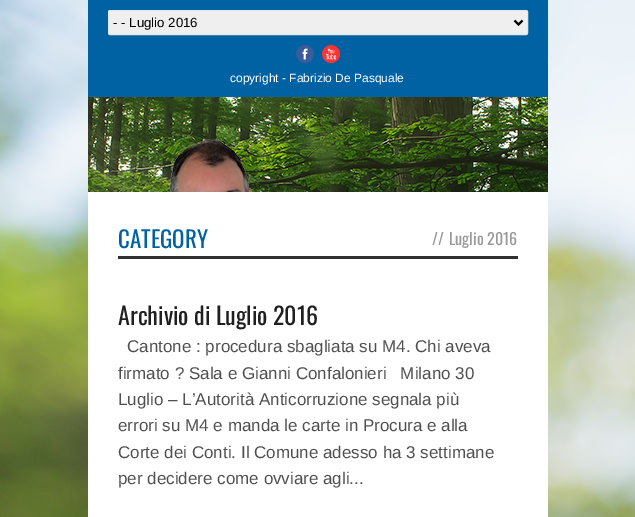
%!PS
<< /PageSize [635 517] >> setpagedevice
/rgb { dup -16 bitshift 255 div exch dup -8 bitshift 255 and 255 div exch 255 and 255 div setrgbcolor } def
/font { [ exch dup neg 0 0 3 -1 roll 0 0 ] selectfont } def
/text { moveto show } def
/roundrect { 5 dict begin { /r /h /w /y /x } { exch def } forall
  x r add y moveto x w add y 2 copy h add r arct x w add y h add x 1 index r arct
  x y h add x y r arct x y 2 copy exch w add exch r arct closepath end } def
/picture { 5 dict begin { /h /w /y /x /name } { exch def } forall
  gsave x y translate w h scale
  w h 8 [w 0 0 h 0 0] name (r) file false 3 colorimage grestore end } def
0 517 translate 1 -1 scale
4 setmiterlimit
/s1 { /LiberationSans-Regular 13.25 font 16#000000 rgb } def
/s2 { /LiberationSans-Regular 12 font 16#FFFFFF rgb } def
/s3 { /Oswald-Regular 23 font 16#0062A3 rgb } def
/s4 { /Oswald-Regular 16 font 16#999999 rgb } def
/s5 { /Oswald-Regular 24 font 16#1F1F1F rgb } def
/s6 { /LiberationSans-Regular 17 font 16#505050 rgb } def
16#FFFFFF rgb
0 0 635 517 rectfill
(pic1.raw) 0 0 635 517 picture
16#0062A3 rgb
88 0 460 97 rectfill
16#EFEFEF rgb
108.5 10.5 419 24 1.5 roundrect gsave fill grestore
16#E6E6E6 rgb
stroke
16#000000 rgb
2 setlinewidth
514.5 20.5 moveto 518.5 24.5 lineto 522.5 20.5 lineto stroke
s1
(- - Luglio 2016) 113 27 text
(pic2.raw) 296 45 18 18 picture
(pic3.raw) 322 45 18 18 picture
s2
(copyright - Fabrizio De Pasquale) 230 82 text
(pic4.raw) 88 97 460 95 picture
88 192 460 325 rectfill
16#313131 rgb
118 256 400 3 rectfill
s3
(CATEGORY) 118 248 text
s4
(//) 432 245 text
(Luglio 2016) 449 245 text
s5
(Archivio di Luglio 2016) 118 325 text
s6
(Cantone : procedura sbagliata su M4. Chi aveva) 127 352 text
(firmato ? Sala e Gianni Confalonieri   Milano 30) 118 379 text
(Luglio – L’Autorità Anticorruzione segnala più) 118 405 text
(errori su M4 e manda le carte in Procura e alla) 118 431 text
(Corte dei Conti. Il Comune adesso ha 3 settimane) 118 458 text
(per decidere come ovviare agli...) 118 484 text
showpage
